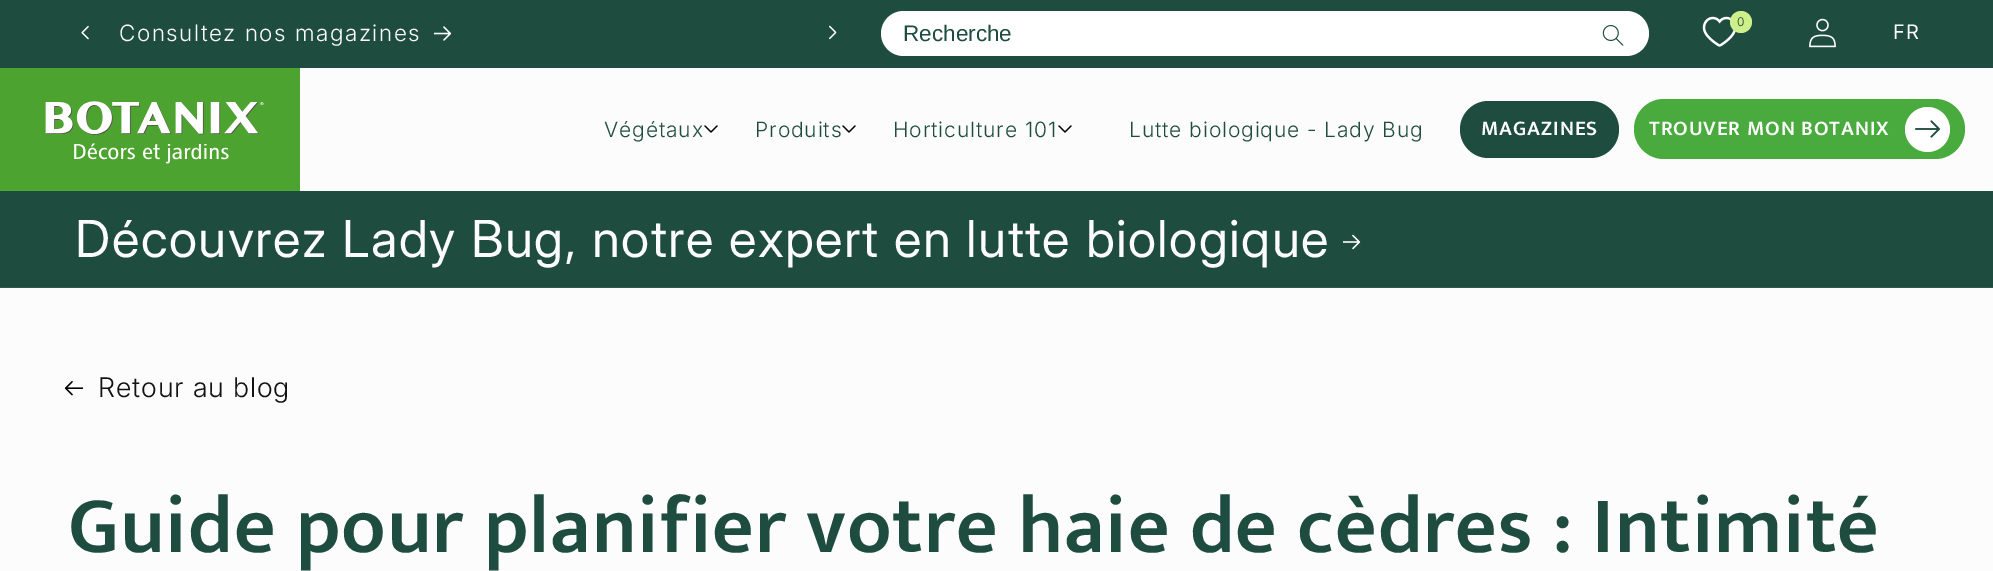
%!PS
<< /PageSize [1993 571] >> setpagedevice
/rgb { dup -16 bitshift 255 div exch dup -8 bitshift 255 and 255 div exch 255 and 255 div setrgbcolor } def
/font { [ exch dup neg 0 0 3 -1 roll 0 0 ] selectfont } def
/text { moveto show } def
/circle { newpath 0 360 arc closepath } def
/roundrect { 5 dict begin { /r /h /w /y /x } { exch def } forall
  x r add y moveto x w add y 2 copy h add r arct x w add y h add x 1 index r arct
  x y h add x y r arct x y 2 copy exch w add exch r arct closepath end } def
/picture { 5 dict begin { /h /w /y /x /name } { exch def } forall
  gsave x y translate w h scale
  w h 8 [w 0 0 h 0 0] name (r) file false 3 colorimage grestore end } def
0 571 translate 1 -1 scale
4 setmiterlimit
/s1 { /LiberationSans-Regular 22.5 font 16#1E4C3F rgb } def
16#FDFCFC rgb
0 0 1993 571 rectfill
16#1E4C3F rgb
0 0 1993 68 rectfill
(pic1.raw) 81 25 8 15 picture
/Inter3-Light 22.5 font
16#FDFCFC rgb
119 41 moveto 1.5 0 (Consultez nos magazines) ashow
(pic2.raw) 434 26 18 15 picture
(pic3.raw) 829 25 8 15 picture
16#FFFFFF rgb
881 11 768 45 22.5 roundrect fill
s1
(Recherche) 903 41 text
(pic4.raw) 1602 25 22 21 picture
(pic5.raw) 1702 16 34 31 picture
16#CEF08B rgb
1741 22 11 circle fill
/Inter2-Light 12 font
16#173A30 rgb
1737 26 moveto 0.9 0 (0) ashow
(pic6.raw) 1809 18 27 30 picture
/Inter2-Regular 20 font
16#FDFCFC rgb
1893 39 moveto 0.9 0 (FR) ashow
16#49AB3D rgb
0 68 300 123 rectfill
(pic7.raw) 0 68 300 123 picture
/Inter2-Light 21 font
16#1E4C3F rgb
604 137 moveto 0.9 0 (Végétaux) ashow
(pic8.raw) 704 125 14 8 picture
755 137 moveto 0.9 0 (Produits) ashow
(pic8.raw) 842 125 14 8 picture
893 137 moveto 0.9 0 (Horticulture 101) ashow
(pic8.raw) 1058 125 14 8 picture
1129 137 moveto 0.9 0 (Lutte biologique - Lady Bug) ashow
1460 101 159 57 28.5 roundrect fill
/Mukta-SemiBold 21 font
16#FDFCFC rgb
1481 135 moveto 0.9 0 (MAGAZINES) ashow
16#49AB3D rgb
1634 99 331 60 30 roundrect fill
16#FDFCFC rgb
1649 135 moveto 0.9 0 (TROUVER MON BOTANIX) ashow
16#FFFFFF rgb
1927.5 129.5 22.5 circle fill
(pic9.raw) 1915 120 25 18 picture
16#1E4C3F rgb
0 191 1993 96 rectfill
16#305A4E rgb
0 287 1993 1 rectfill
/Inter-Regular 51 font
16#FDFCFC rgb
75 257 moveto 1.5 0 (Découvrez Lady Bug, notre expert en lutte biologique) ashow
(pic10.raw) 1343 234 18 16 picture
(pic11.raw) 64 381 19 15 picture
/Inter-Light 27 font
16#121212 rgb
98 397 moveto 0.9 0 (Retour au blog) ashow
/Mukta-SemiBold 81 font
16#1E4C3F rgb
68 552 moveto 0.9 0 (Guide pour planifier votre haie de cèdres : Intimité) ashow
showpage
